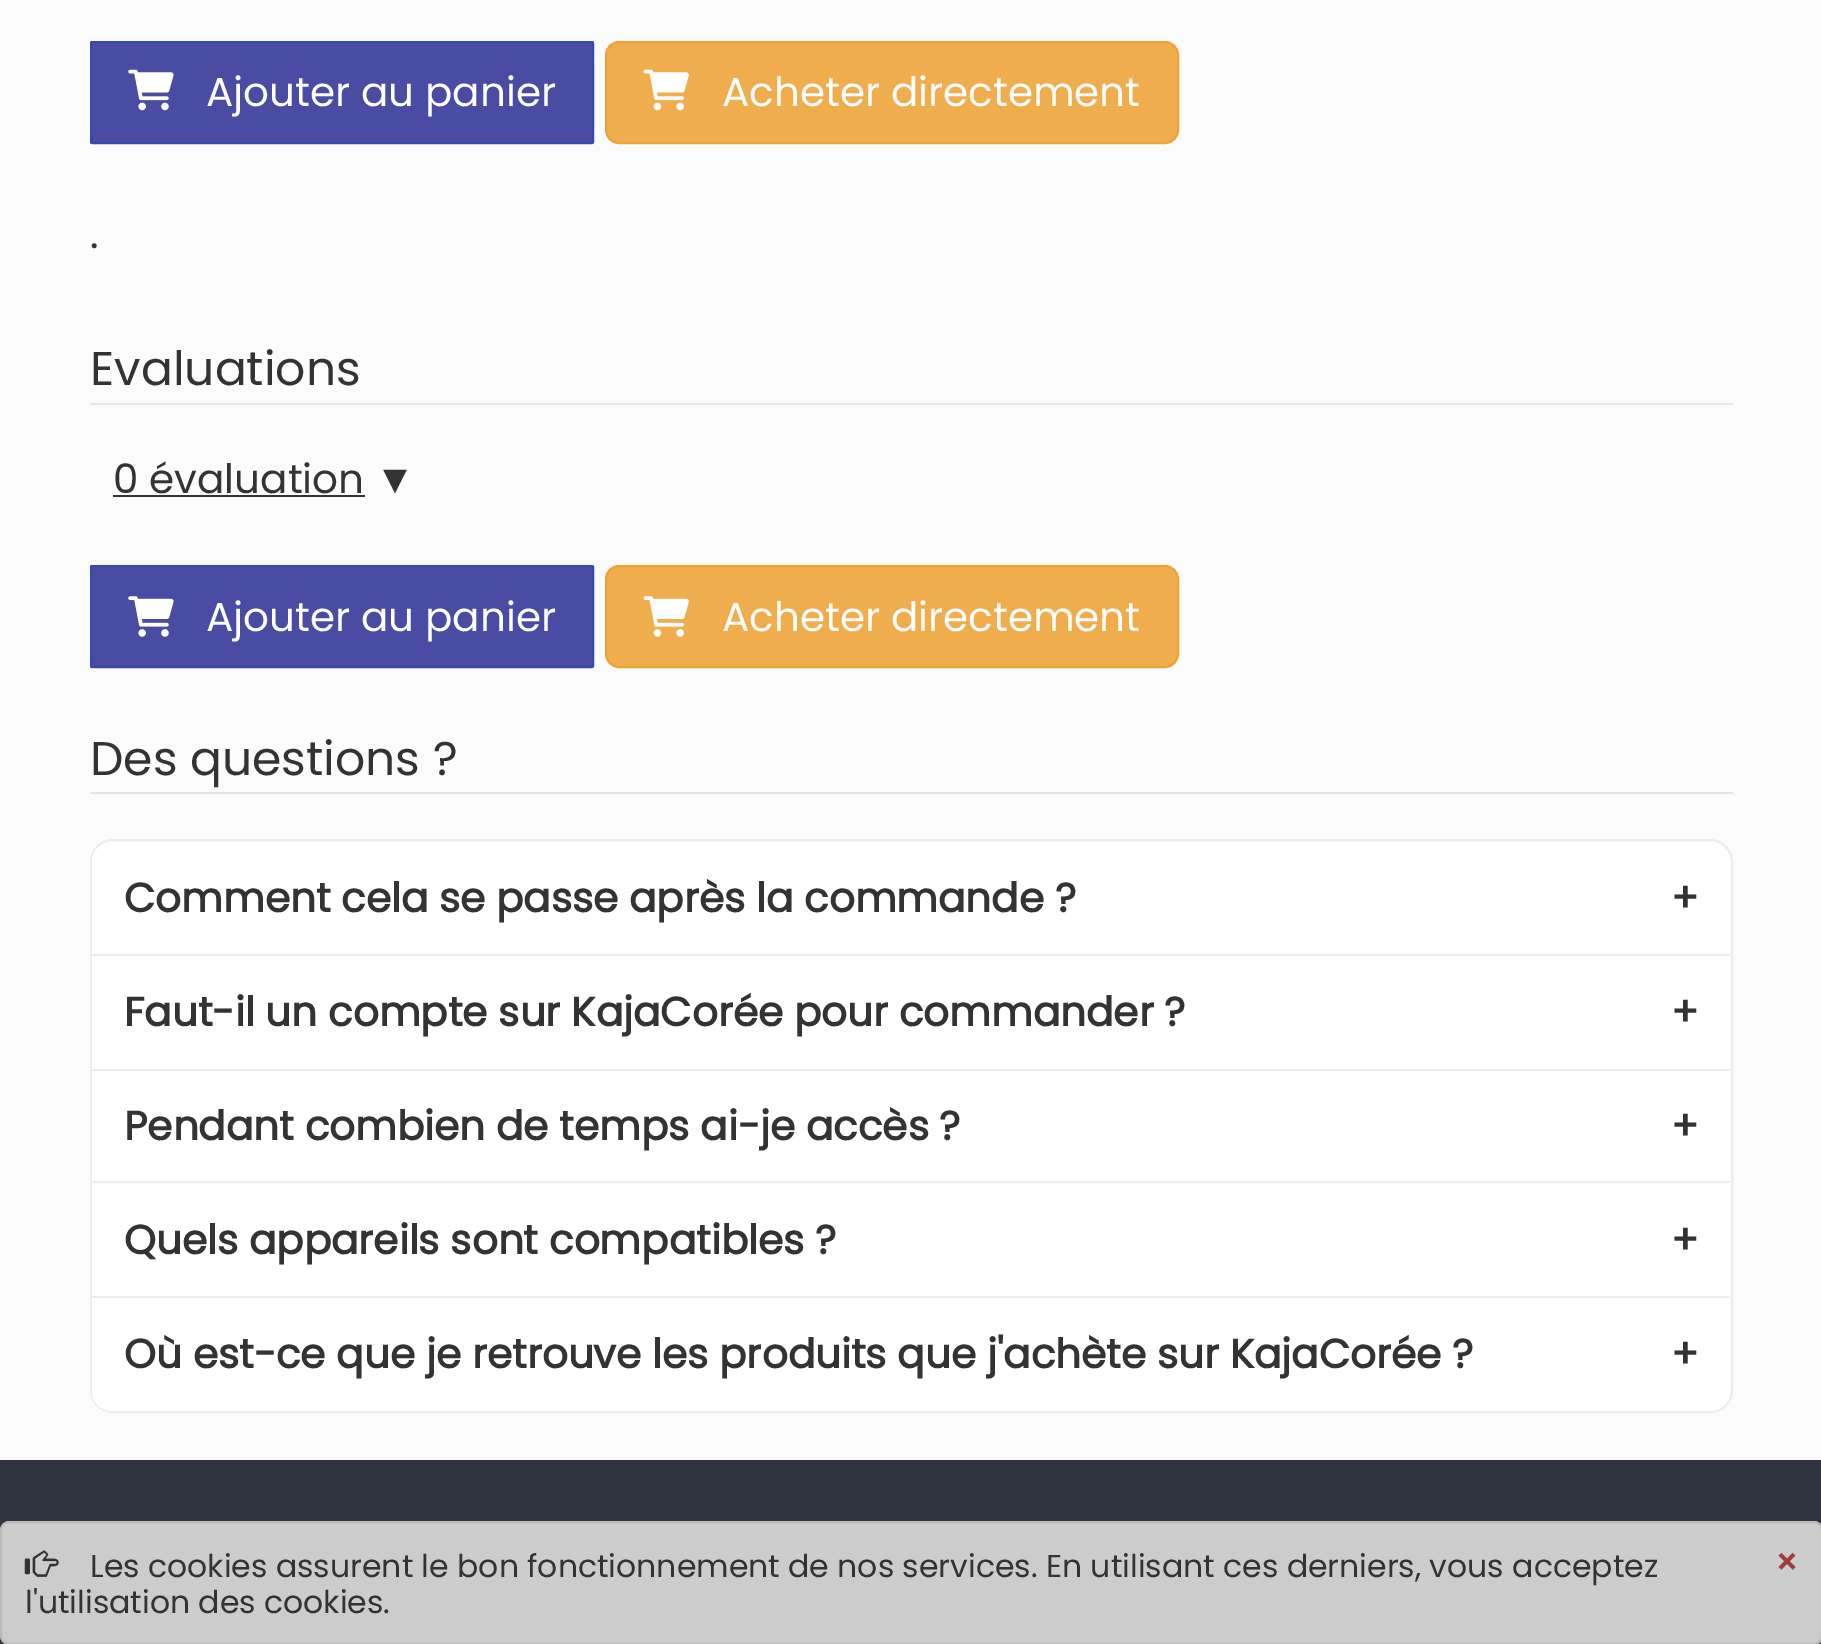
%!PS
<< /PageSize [1821 1644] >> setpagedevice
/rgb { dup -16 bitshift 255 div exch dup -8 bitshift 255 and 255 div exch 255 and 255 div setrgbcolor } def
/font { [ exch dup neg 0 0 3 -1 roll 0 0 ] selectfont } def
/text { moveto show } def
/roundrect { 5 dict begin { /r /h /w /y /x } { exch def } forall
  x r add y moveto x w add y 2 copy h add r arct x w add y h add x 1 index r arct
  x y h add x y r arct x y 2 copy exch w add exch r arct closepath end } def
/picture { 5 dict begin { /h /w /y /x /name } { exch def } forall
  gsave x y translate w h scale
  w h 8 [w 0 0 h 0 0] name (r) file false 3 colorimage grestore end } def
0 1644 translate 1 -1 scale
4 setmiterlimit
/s1 { /Poppins-Regular 40.5 font 16#FFFFFF rgb } def
/s2 { /Poppins-Regular 40.5 font 16#333333 rgb } def
/s3 { /Poppins-Regular 47.25 font 16#333333 rgb } def
/s4 { /LiberationSerif-Regular 40.5 font 16#333333 rgb } def
/s5 { /Poppins-Bold 40.5 font 16#333333 rgb } def
/s6 { /Poppins-Regular 31.5 font 16#333333 rgb } def
/s7 { /Poppins-Bold 36 font 16#9F3D3D rgb } def
16#FBFBFB rgb
0 0 1821 1644 rectfill
16#494CA2 rgb
91 42 502 101 1 roundrect gsave fill grestore
16#3548AE rgb
2 setlinewidth
stroke
(pic1.raw) 128 69 46 42 picture
s1
(Ajouter au panier) 206 106 text
16#F0AD4E rgb
606 42 572 101 13 roundrect gsave fill grestore
16#EEA236 rgb
stroke
(pic2.raw) 643 69 46 42 picture
s1
(Acheter directement) 722 106 text
s2
(.) 90 248 text
16#E5E5E5 rgb
90 403 1643 2 rectfill
s3
(Evaluations) 90 385 text
s2
(0 évaluation) 113 493 text
113 495 252 2 rectfill
s4
(▼) 375 493 text
16#494CA2 rgb
91 566 502 101 1 roundrect gsave fill grestore
16#3548AE rgb
stroke
(pic3.raw) 128 596 46 41 picture
s1
(Ajouter au panier) 206 631 text
16#F0AD4E rgb
606 566 572 101 13 roundrect gsave fill grestore
16#EEA236 rgb
stroke
(pic4.raw) 643 596 46 41 picture
s1
(Acheter directement) 722 631 text
16#E5E5E5 rgb
90 792 1643 2 rectfill
s3
(Des questions ?) 90 775 text
16#E7EEF6 rgb
91 840 1641 572 22 roundrect stroke
16#FFFFFF rgb
112 842 moveto 1710 842 lineto 1721 842 1730 851 1730 862 curveto 1730 954 lineto 92 954 lineto 92 862 lineto 92 851 101 842 112 842 curveto closepath fill
s5
(Comment cela se passe après la commande ?) 124 912 text
(+) 1671 912 text
16#E7EEF6 rgb
92 954 1638 2 rectfill
16#FFFFFF rgb
92 956 1638 113 rectfill
s5
(Faut-il un compte sur KajaCorée pour commander ?) 124 1026 text
(+) 1671 1026 text
16#E7EEF6 rgb
92 1069 1638 2 rectfill
16#FFFFFF rgb
92 1071 1638 110 rectfill
s5
(Pendant combien de temps ai-je accès ?) 124 1140 text
(+) 1671 1140 text
16#E7EEF6 rgb
92 1181 1638 2 rectfill
16#FFFFFF rgb
92 1184 1638 112 rectfill
s5
(Quels appareils sont compatibles ?) 124 1254 text
(+) 1671 1254 text
16#E7EEF6 rgb
92 1296 1638 2 rectfill
16#FFFFFF rgb
92 1298 moveto 1730 1298 lineto 1730 1391 lineto 1730 1402 1721 1411 1710 1411 curveto 112 1411 lineto 101 1411 92 1402 92 1391 curveto closepath fill
s5
(Où est-ce que je retrouve les produits que j'achète sur KajaCorée ?) 124 1368 text
(+) 1671 1368 text
16#303440 rgb
0 1460 1821 184 rectfill
16#CCCCCC rgb
1 1522 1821 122 8 roundrect gsave fill grestore
16#BBBBBB rgb
stroke
(pic5.raw) 24 1550 35 27 picture
s6
(Les cookies assurent le bon fonctionnement de nos services. En utilisant ces derniers, vous acceptez) 90 1577 text
s7
(×) 1775 1575 text
s6
(l'utilisation des cookies.) 25 1613 text
showpage
